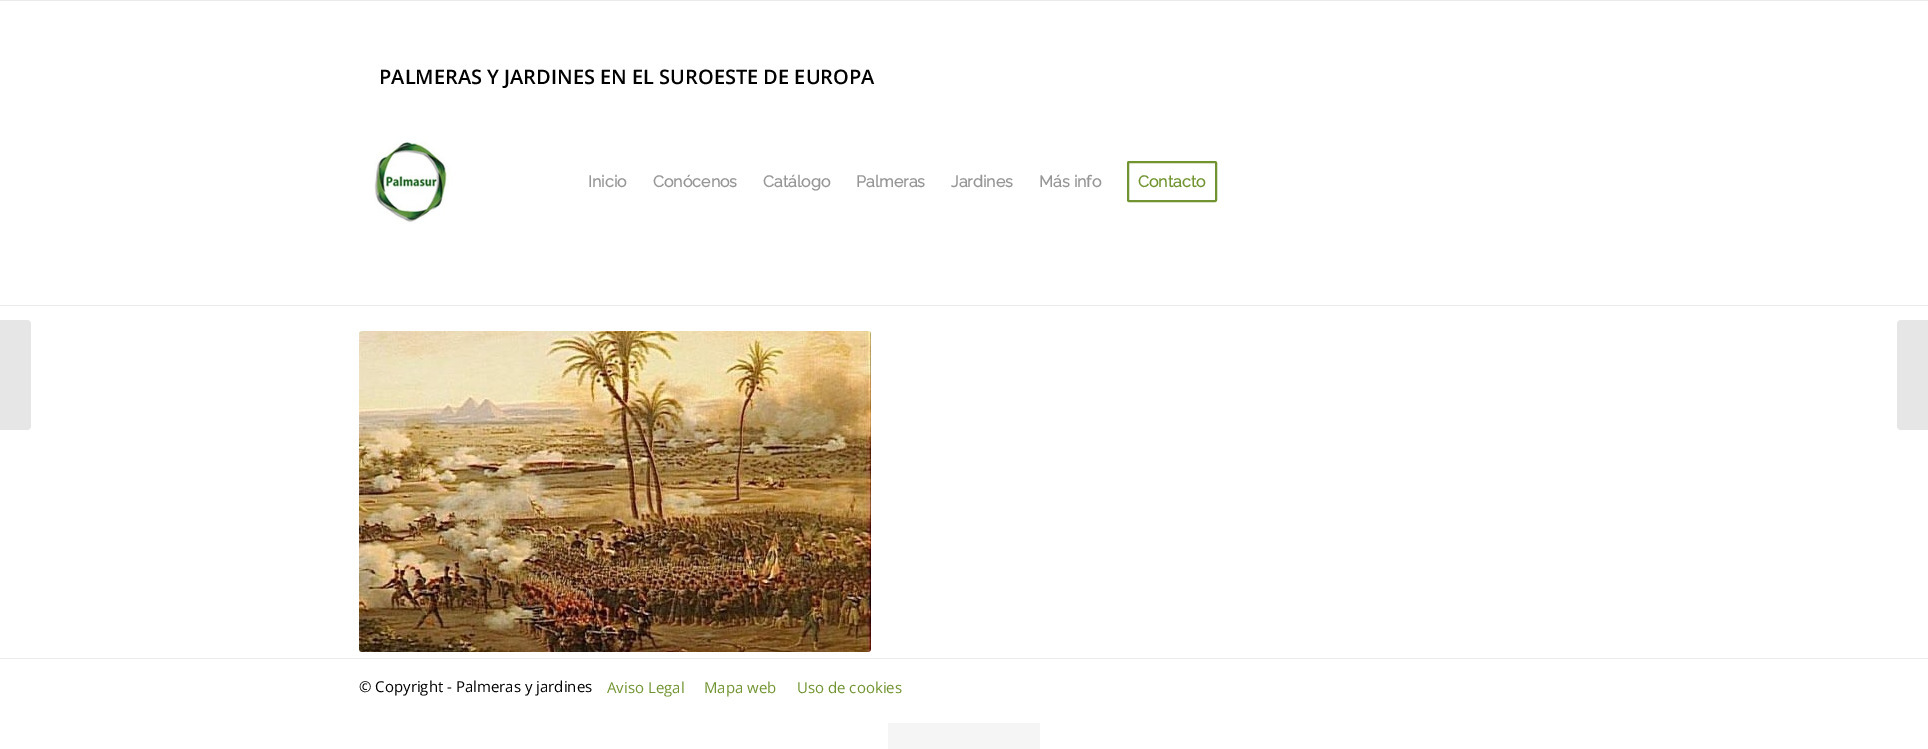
%!PS
<< /PageSize [1928 749] >> setpagedevice
/rgb { dup -16 bitshift 255 div exch dup -8 bitshift 255 and 255 div exch 255 and 255 div setrgbcolor } def
/font { [ exch dup neg 0 0 3 -1 roll 0 0 ] selectfont } def
/text { moveto show } def
/roundrect { 5 dict begin { /r /h /w /y /x } { exch def } forall
  x r add y moveto x w add y 2 copy h add r arct x w add y h add x 1 index r arct
  x y h add x y r arct x y 2 copy exch w add exch r arct closepath end } def
/picture { 5 dict begin { /h /w /y /x /name } { exch def } forall
  gsave x y translate w h scale
  w h 8 [w 0 0 h 0 0] name (r) file false 3 colorimage grestore end } def
0 749 translate 1 -1 scale
4 setmiterlimit
/s1 { /OpenSans-SemiBold 20 font 16#000000 rgb } def
/s2 { /Raleway-Bold 16 font 16#969696 rgb } def
/s3 { /Raleway-Bold 16 font 16#719430 rgb } def
/s4 { /OpenSans-Regular 15 font 16#000000 rgb } def
/s5 { /OpenSans-Regular 15 font 16#719430 rgb } def
16#FFFFFF rgb
0 0 1928 749 rectfill
16#EBEBEB rgb
0 0 1928 1 rectfill
s1
(PALMERAS Y JARDINES EN EL SUROESTE DE EUROPA) 379 84 text
(pic1.raw) 374 140 79 84 picture
s2
(Inicio) 588 187 text
(Conócenos) 653 187 text
(Catálogo) 763 187 text
(Palmeras) 856 187 text
(Jardines) 951 187 text
(Más info) 1039 187 text
16#719430 rgb
2 setlinewidth
1128 162 88 39 1 roundrect stroke
(Contacto) 1138 187 text
16#E6E6E6 rgb
0 320 moveto 27 320 lineto 29 320 31 322 31 324 curveto 31 426 lineto 31 428 29 430 27 430 curveto 0 430 lineto closepath fill
1901 320 moveto 1928 320 lineto 1928 430 lineto 1901 430 lineto 1899 430 1897 428 1897 426 curveto 1897 324 lineto 1897 322 1899 320 1901 320 curveto closepath fill
16#EBEBEB rgb
0 305 1928 1 rectfill
(pic2.raw) 359 331 512 321 picture
0 658 1928 1 rectfill
s4
(© Copyright - Palmeras y jardines) 359 692 text
s5
(Aviso Legal) 607 693 text
(Mapa web) 704 693 text
(Uso de cookies) 797 693 text
16#F5F5F5 rgb
888 723 152 26 rectfill
showpage
